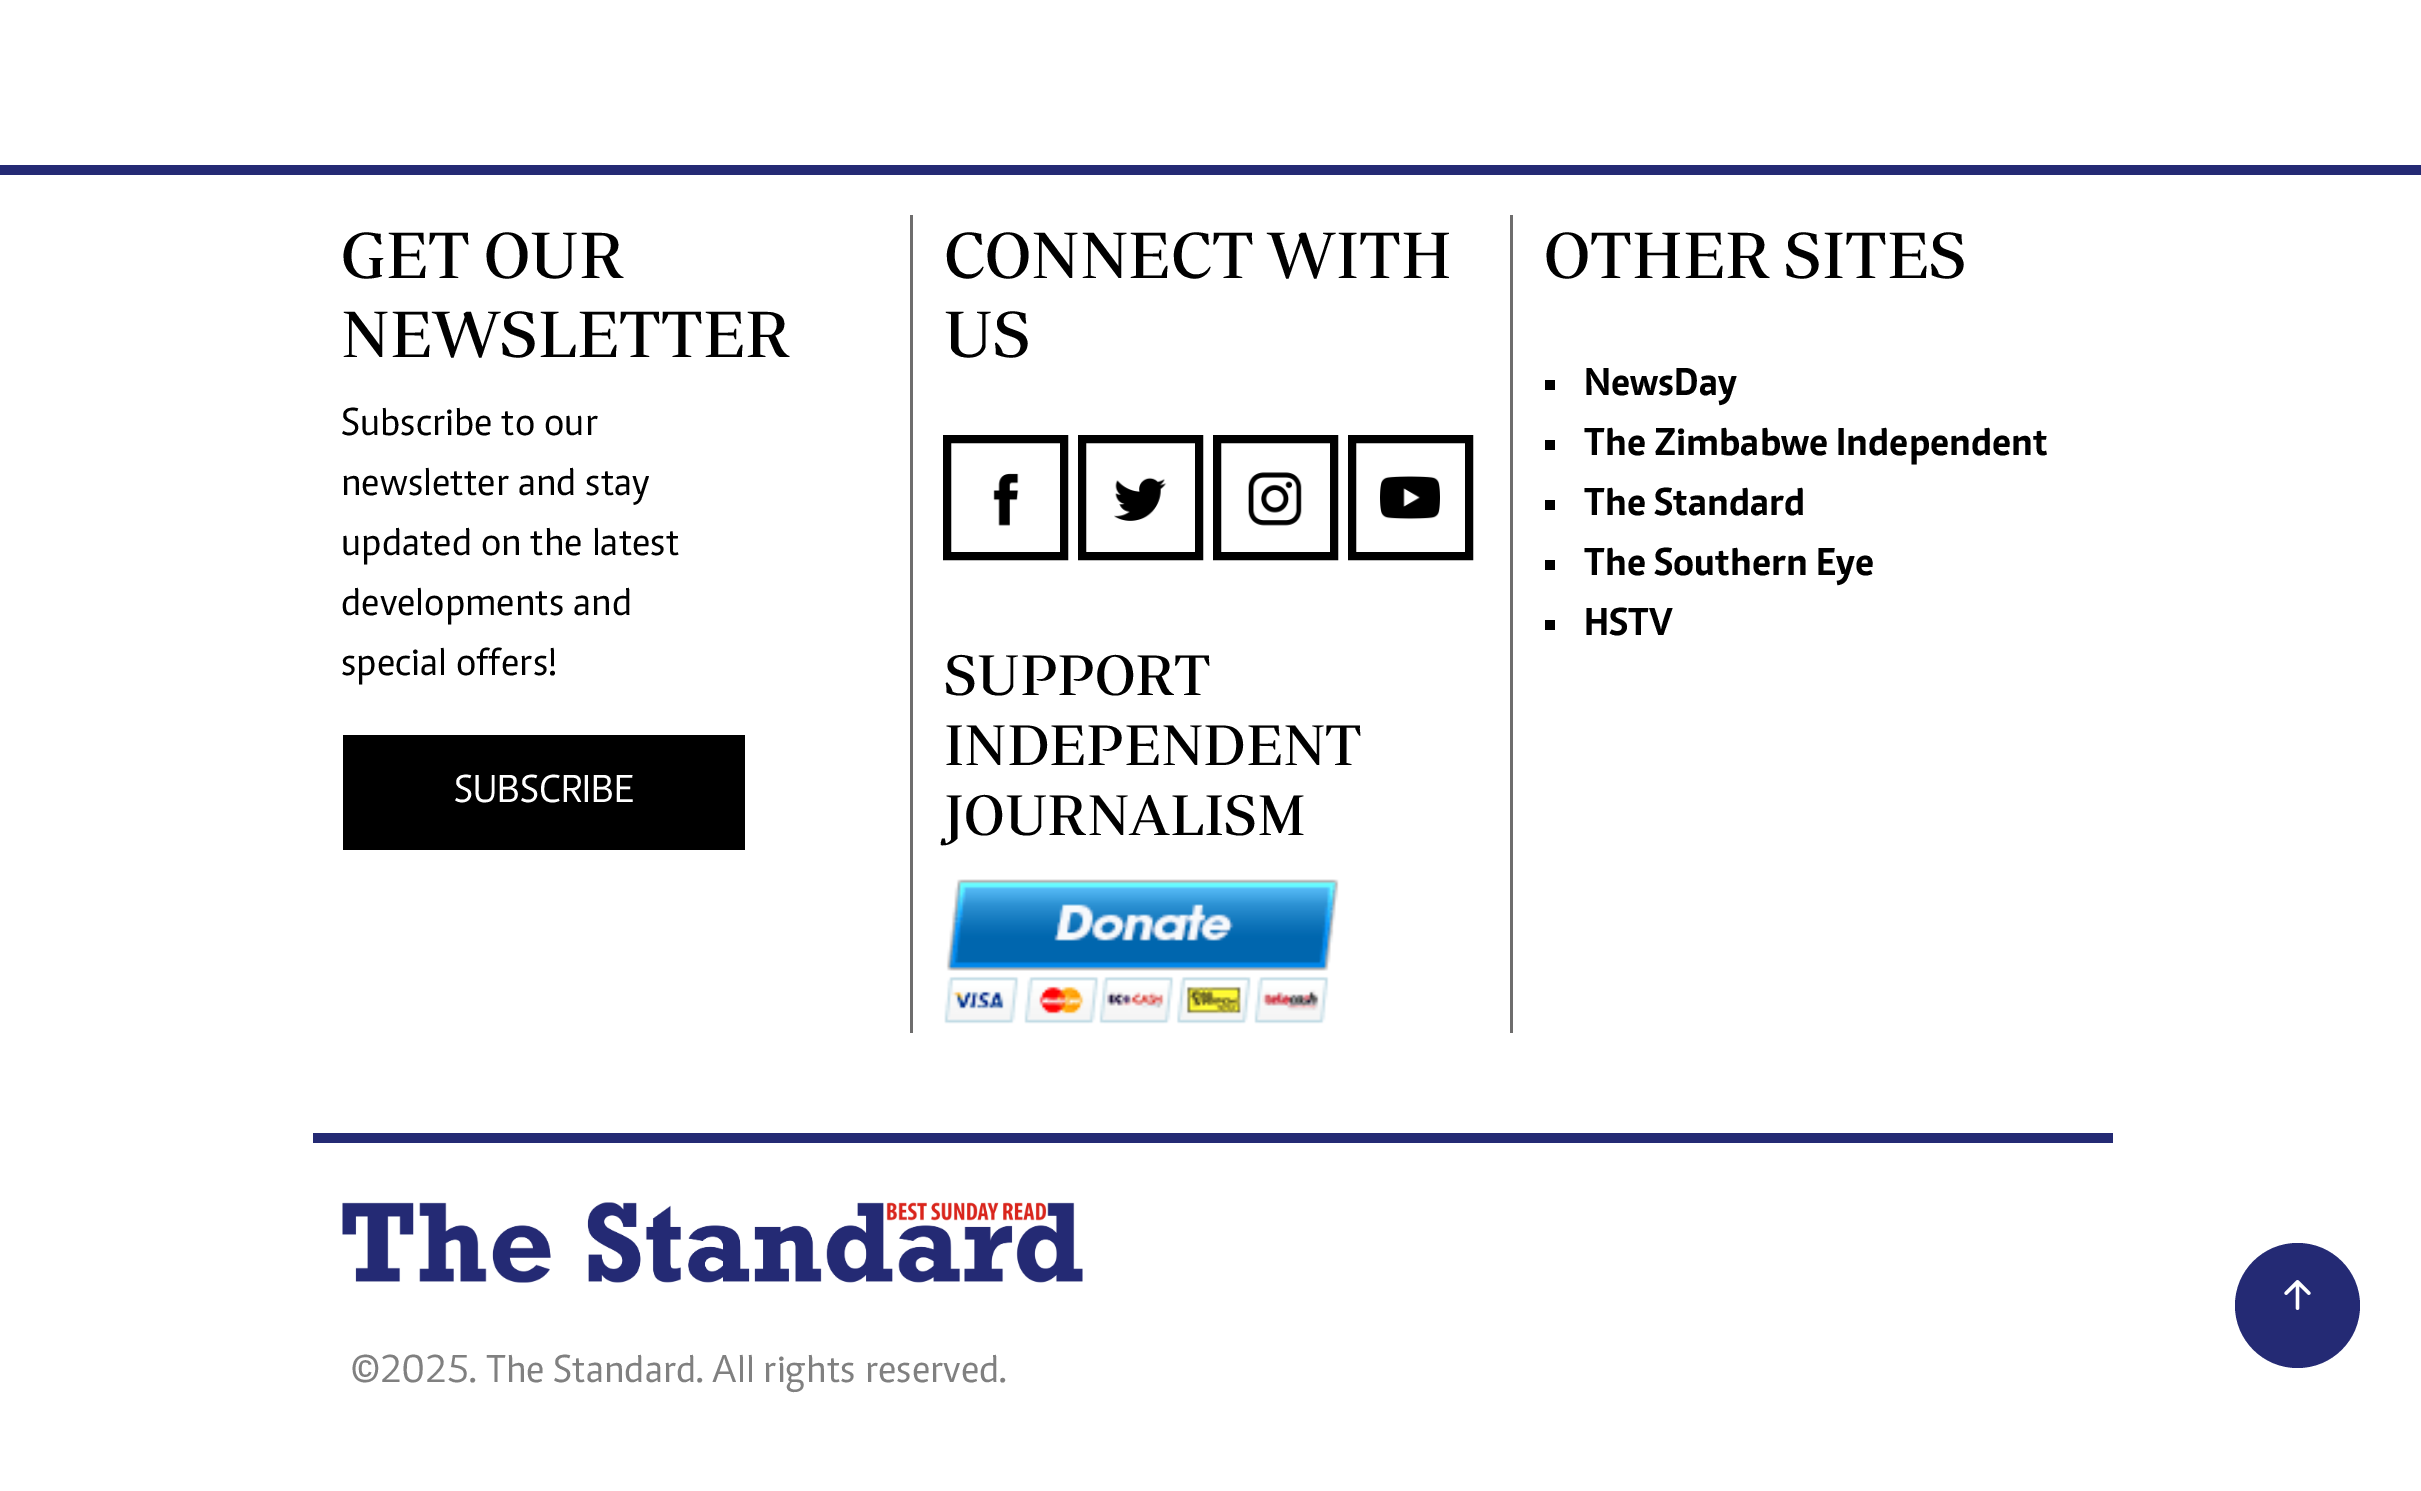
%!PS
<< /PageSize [2421 1491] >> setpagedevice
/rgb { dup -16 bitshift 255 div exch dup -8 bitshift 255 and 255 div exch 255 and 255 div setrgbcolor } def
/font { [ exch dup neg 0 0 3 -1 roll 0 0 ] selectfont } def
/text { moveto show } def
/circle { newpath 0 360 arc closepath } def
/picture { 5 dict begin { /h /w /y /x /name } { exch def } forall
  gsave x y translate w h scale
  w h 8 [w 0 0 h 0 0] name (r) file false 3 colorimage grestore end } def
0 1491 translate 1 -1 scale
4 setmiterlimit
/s1 { /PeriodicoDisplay-Regular 66.5 font 16#000000 rgb } def
/s2 { /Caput-Regular 40 font 16#000000 rgb } def
/s3 { /Caput-Regular 40 font 16#FFFFFF rgb } def
/s4 { /PeriodicoDisplay-Regular 58.25 font 16#000000 rgb } def
/s5 { /Caput-Bold 40 font 16#000000 rgb } def
/s6 { /Caput-Regular 40 font 16#808080 rgb } def
16#FFFFFF rgb
0 0 2421 1491 rectfill
16#242A74 rgb
0 165 2421 10 rectfill
s1
(GET OUR) 341 278 text
(NEWSLETTER) 341 357 text
s2
(Subscribe to our) 341 435 text
(newsletter and stay) 341 495 text
(updated on the latest) 341 555 text
(developments and) 341 615 text
(special offers!) 341 675 text
343 735 402 115 rectfill
s3
(SUBSCRIBE) 454 802 text
16#6E6D6D rgb
910 215 3 818 rectfill
s1
(CONNECT WITH) 944 278 text
(US) 944 357 text
8 setlinewidth
947 439 117 117 rectstroke
(pic1.raw) 993 473 26 53 picture
1082 439 117 117 rectstroke
(pic2.raw) 1114 477 53 44 picture
1217 439 117 117 rectstroke
(pic3.raw) 1248 472 54 54 picture
1352 439 117 117 rectstroke
(pic4.raw) 1380 476 60 44 picture
s4
(SUPPORT) 944 695 text
(INDEPENDENT) 944 765 text
(JOURNALISM) 944 835 text
(pic5.raw) 944 879 395 145 picture
16#6E6D6D rgb
1510 215 3 818 rectfill
s1
(OTHER SITES) 1544 278 text
1545 380 10 10 rectfill
s5
(NewsDay) 1584 395 text
1545 440 10 10 rectfill
(The Zimbabwe Independent) 1584 455 text
1545 500 10 10 rectfill
(The Standard) 1584 515 text
1545 560 10 10 rectfill
(The Southern Eye) 1584 575 text
1545 620 10 10 rectfill
(HSTV) 1584 635 text
16#242A74 rgb
313 1133 1800 10 rectfill
(pic6.raw) 342 1202 741 81 picture
s6
(©2025. The Standard. All rights reserved.) 351 1382 text
16#242A74 rgb
2297.5 1305.5 62.5 circle fill
(pic7.raw) 2284 1280 27 30 picture
showpage
